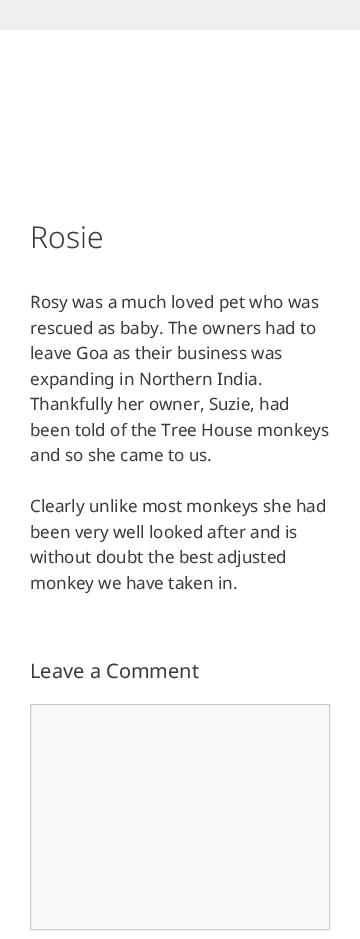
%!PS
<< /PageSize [360 939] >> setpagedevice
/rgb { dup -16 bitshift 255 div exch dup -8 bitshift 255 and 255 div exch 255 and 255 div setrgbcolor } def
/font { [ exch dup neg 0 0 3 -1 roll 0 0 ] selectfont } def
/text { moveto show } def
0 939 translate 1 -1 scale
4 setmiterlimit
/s1 { /NotoSans-Light 30 font 16#3A3A3A rgb } def
/s2 { /NotoSans-Regular 17 font 16#3A3A3A rgb } def
/s3 { /NotoSans-Regular 20 font 16#3A3A3A rgb } def
16#EFEFEF rgb
0 0 360 939 rectfill
16#FFFFFF rgb
0 30 360 909 rectfill
s1
(Rosie) 30 248 text
s2
(Rosy was a much loved pet who was) 30 308 text
(rescued as baby. The owners had to) 30 334 text
(leave Goa as their business was) 30 359 text
(expanding in Northern India.) 30 385 text
(Thankfully her owner, Suzie, had) 30 410 text
(been told of the Tree House monkeys) 30 436 text
(and so she came to us.) 30 461 text
(Clearly unlike most monkeys she had) 30 512 text
(been very well looked after and is) 30 538 text
(without doubt the best adjusted) 30 563 text
(monkey we have taken in.) 30 589 text
s3
(Leave a Comment) 30 678 text
16#FAFAFA rgb
30.5 704.5 moveto 329.5 704.5 lineto 329.5 929.5 lineto 30.5 929.5 lineto closepath gsave fill grestore
16#CCCCCC rgb
stroke
showpage
